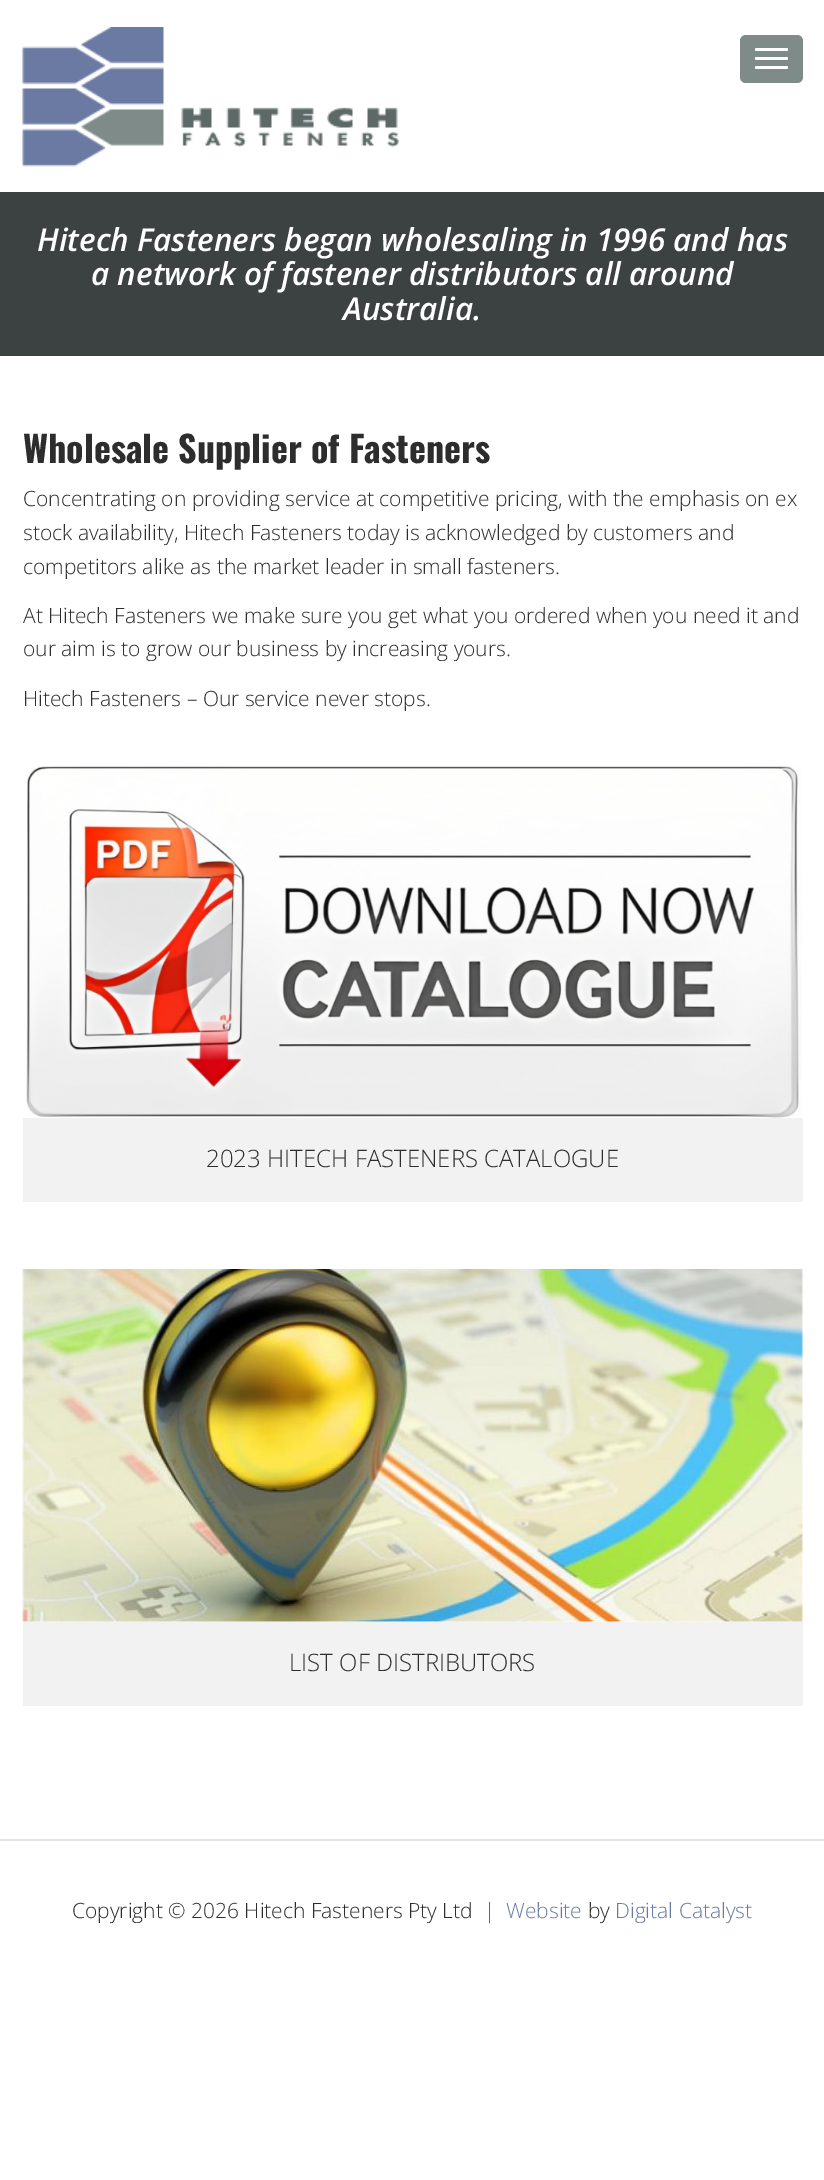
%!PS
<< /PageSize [824 2180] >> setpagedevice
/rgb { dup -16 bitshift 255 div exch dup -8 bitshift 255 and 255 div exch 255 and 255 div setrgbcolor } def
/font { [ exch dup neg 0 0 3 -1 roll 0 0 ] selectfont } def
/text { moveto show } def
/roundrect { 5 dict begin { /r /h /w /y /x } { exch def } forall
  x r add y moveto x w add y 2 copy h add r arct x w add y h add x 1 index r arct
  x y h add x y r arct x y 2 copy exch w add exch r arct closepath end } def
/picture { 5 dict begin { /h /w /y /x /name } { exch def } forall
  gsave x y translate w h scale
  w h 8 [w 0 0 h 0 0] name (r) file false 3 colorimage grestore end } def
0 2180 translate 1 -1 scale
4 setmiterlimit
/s1 { /OpenSans-SemiBoldItalic 31.5 font 16#FFFFFF rgb } def
/s2 { /Oswald-Bold 36 font 16#2D2D2D rgb } def
/s3 { /OpenSans-Light 21 font 16#2D2D2D rgb } def
/s4 { /OpenSans-Light 24 font 16#2D2D2D rgb } def
/s5 { /OpenSans-Light 21 font 16#6B7AA3 rgb } def
16#FFFFFF rgb
0 0 824 2180 rectfill
(pic1.raw) 22 27 377 140 picture
16#7F8B89 rgb
740 35 63 48 6 roundrect fill
16#FFFFFF rgb
755 48 33 3 1.5 roundrect fill
755 57 33 3 1.5 roundrect fill
755 66 33 3 1.5 roundrect fill
16#3B4241 rgb
0 192 824 164 rectfill
s1
(Hitech Fasteners began wholesaling in 1996 and has) 37 251 text
(a network of fastener distributors all around) 91 285 text
(Australia.) 343 320 text
s2
(Wholesale Supplier of Fasteners) 23 463 text
s3
(Concentrating on providing service at competitive pricing, with the emphasis on ex) 23 506 text
(stock availability, Hitech Fasteners today is acknowledged by customers and) 23 540 text
(competitors alike as the market leader in small fasteners.) 23 574 text
(At Hitech Fasteners we make sure you get what you ordered when you need it and) 23 623 text
(our aim is to grow our business by increasing yours.) 23 656 text
(Hitech Fasteners – Our service never stops.) 23 706 text
(pic2.raw) 26 766 776 352 picture
16#F2F2F2 rgb
23 1118 780 84 rectfill
s4
(2023 HITECH FASTENERS CATALOGUE) 206 1167 text
(pic3.raw) 22 1269 781 353 picture
16#F2F2F2 rgb
23 1622 780 84 rectfill
s4
(LIST OF DISTRIBUTORS) 289 1671 text
16#E5E5E5 rgb
0 1839 824 2 rectfill
s3
(Copyright © 2026 Hitech Fasteners Pty Ltd  |) 72 1918 text
s5
(Website) 506 1918 text
s3
(by) 588 1918 text
s5
(Digital Catalyst) 615 1918 text
showpage
